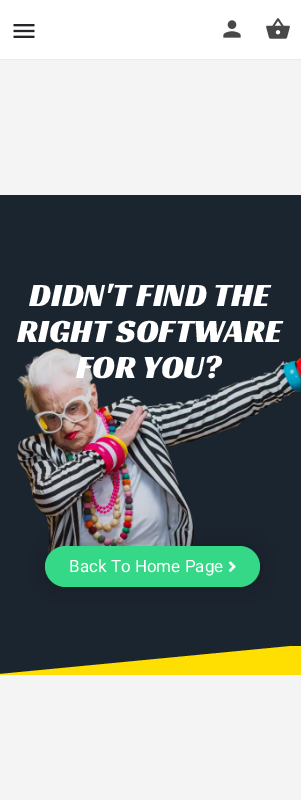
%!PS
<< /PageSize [301 800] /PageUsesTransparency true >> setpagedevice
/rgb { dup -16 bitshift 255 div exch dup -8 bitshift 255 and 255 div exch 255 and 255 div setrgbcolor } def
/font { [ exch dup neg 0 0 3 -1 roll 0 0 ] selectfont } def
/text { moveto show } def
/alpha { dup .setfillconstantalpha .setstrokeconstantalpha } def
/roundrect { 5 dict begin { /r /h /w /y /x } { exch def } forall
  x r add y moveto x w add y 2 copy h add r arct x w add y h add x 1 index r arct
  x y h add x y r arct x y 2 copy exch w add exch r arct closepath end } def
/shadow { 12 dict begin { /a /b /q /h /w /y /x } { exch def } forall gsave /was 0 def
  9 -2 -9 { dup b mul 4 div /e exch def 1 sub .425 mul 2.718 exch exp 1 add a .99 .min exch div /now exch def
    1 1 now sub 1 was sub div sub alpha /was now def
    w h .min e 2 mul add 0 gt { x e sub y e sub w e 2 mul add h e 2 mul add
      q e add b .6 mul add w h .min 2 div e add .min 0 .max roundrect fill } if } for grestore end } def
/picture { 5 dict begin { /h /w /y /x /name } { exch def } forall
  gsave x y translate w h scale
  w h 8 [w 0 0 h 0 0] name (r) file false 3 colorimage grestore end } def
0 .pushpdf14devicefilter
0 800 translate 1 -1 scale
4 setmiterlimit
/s1 { /RacingSansOne-Regular 33 font 16#FFFFFF rgb } def
/s2 { /Roboto-Regular 17 font 16#FFFFFF rgb } def
16#F4F4F4 rgb
0 0 301 800 rectfill
16#FFFFFF rgb
0 0 301 59 rectfill
16#EBEBEB rgb
0 59 301 1 rectfill
(pic1.raw) 13 24 22 14 picture
(pic2.raw) 223 20 18 18 picture
(pic3.raw) 266 18 24 21 picture
16#1B252F rgb
0 195 301 479 rectfill
s1
(DIDN'T FIND THE) 29 306 text
(RIGHT SOFTWARE) 17 342 text
(pic4.raw) 17 348 284 205 picture
(FOR YOU?) 76 378 text
16#000000 rgb
45 546 215 41 20.5 15 0.2 shadow
16#35D886 rgb
45 546 215 41 20.5 roundrect fill
s2
(Back To Home Page) 69 572 text
(pic5.raw) 228 561 8 11 picture
gsave
0 646 301 29 rectclip
16#FFDE01 rgb
0 674 moveto 0 675 lineto 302 675 lineto 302 645 lineto closepath fill
grestore
.poppdf14devicefilter showpage
